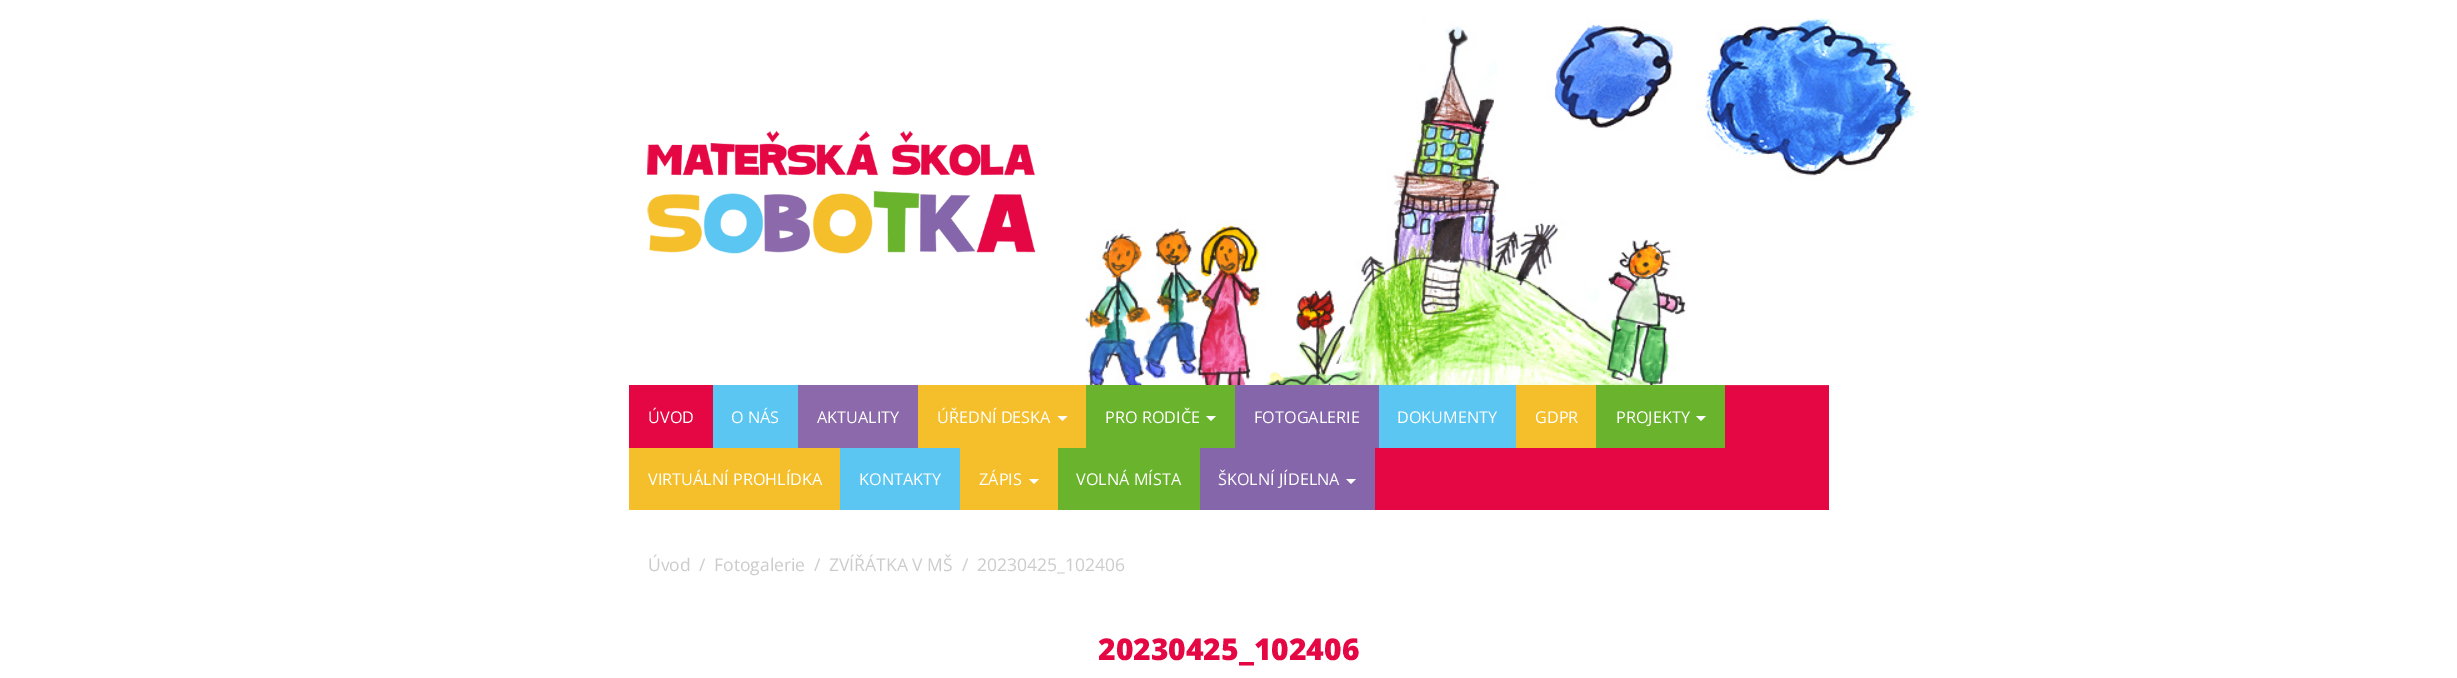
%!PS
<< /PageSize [2457 678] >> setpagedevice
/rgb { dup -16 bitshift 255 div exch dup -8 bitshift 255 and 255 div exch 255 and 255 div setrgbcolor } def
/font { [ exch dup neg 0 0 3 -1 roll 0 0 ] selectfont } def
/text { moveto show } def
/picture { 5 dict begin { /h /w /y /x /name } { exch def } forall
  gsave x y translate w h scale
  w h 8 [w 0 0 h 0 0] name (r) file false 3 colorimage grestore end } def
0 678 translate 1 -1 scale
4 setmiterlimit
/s1 { /OpenSans-Regular 16.25 font 16#FFFFFF rgb } def
/s2 { /OpenSans-Regular 17.5 font 16#CCCCCC rgb } def
/s3 { /OpenSans-ExtraBold 30 font 16#E50744 rgb } def
16#FFFFFF rgb
0 0 2457 678 rectfill
(pic1.raw) 647 131 389 123 picture
(pic2.raw) 1084 18 835 402 picture
16#E50744 rgb
1375 386 454 124 rectfill
16#E82057 rgb
1725 385 104 1 rectfill
16#E50744 rgb
629 385 84 63 rectfill
s1
(ÚVOD) 648 423 text
16#5BC6F1 rgb
713 385 85 63 rectfill
s1
(O NÁS) 731 423 text
16#8C69AB rgb
798 385 120 63 rectfill
s1
(AKTUALITY) 817 423 text
16#F5BF2C rgb
918 385 168 63 rectfill
s1
(ÚŘEDNÍ DESKA) 937 423 text
1057.5 416 moveto 1067.5 416 lineto 1062.5 421 lineto closepath fill
16#6AB42D rgb
1086 385 149 63 rectfill
s1
(PRO RODIČE) 1105 423 text
1206 416 moveto 1216 416 lineto 1211 421 lineto closepath fill
16#8666AA rgb
1235 385 144 63 rectfill
s1
(FOTOGALERIE) 1254 423 text
16#5BC6F1 rgb
1379 385 137 63 rectfill
s1
(DOKUMENTY) 1397 423 text
16#F5BF2C rgb
1516 385 80 63 rectfill
s1
(GDPR) 1535 423 text
16#6AB42D rgb
1596 385 129 63 rectfill
s1
(PROJEKTY) 1616 423 text
1696 416 moveto 1706 416 lineto 1701 421 lineto closepath fill
16#F5BF2C rgb
629 448 211 62 rectfill
s1
(VIRTUÁLNÍ PROHLÍDKA) 648 485 text
16#5BC6F1 rgb
840 448 120 62 rectfill
s1
(KONTAKTY) 859 485 text
16#F5BF2C rgb
960 448 98 62 rectfill
s1
(ZÁPIS) 979 485 text
1029 479 moveto 1039 479 lineto 1034 484 lineto closepath fill
16#6AB42D rgb
1058 448 142 62 rectfill
s1
(VOLNÁ MÍSTA) 1076 485 text
16#8666AA rgb
1200 448 175 62 rectfill
s1
(ŠKOLNÍ JÍDELNA) 1218 485 text
1346 479 moveto 1356 479 lineto 1351 484 lineto closepath fill
s2
(Úvod) 648 571 text
(/) 699 571 text
(Fotogalerie) 714 571 text
(/) 814 571 text
(ZVÍŘÁTKA V MŠ) 829 571 text
(/) 962 571 text
(20230425_102406) 977 571 text
s3
(20230425_102406) 1098 660 text
showpage
